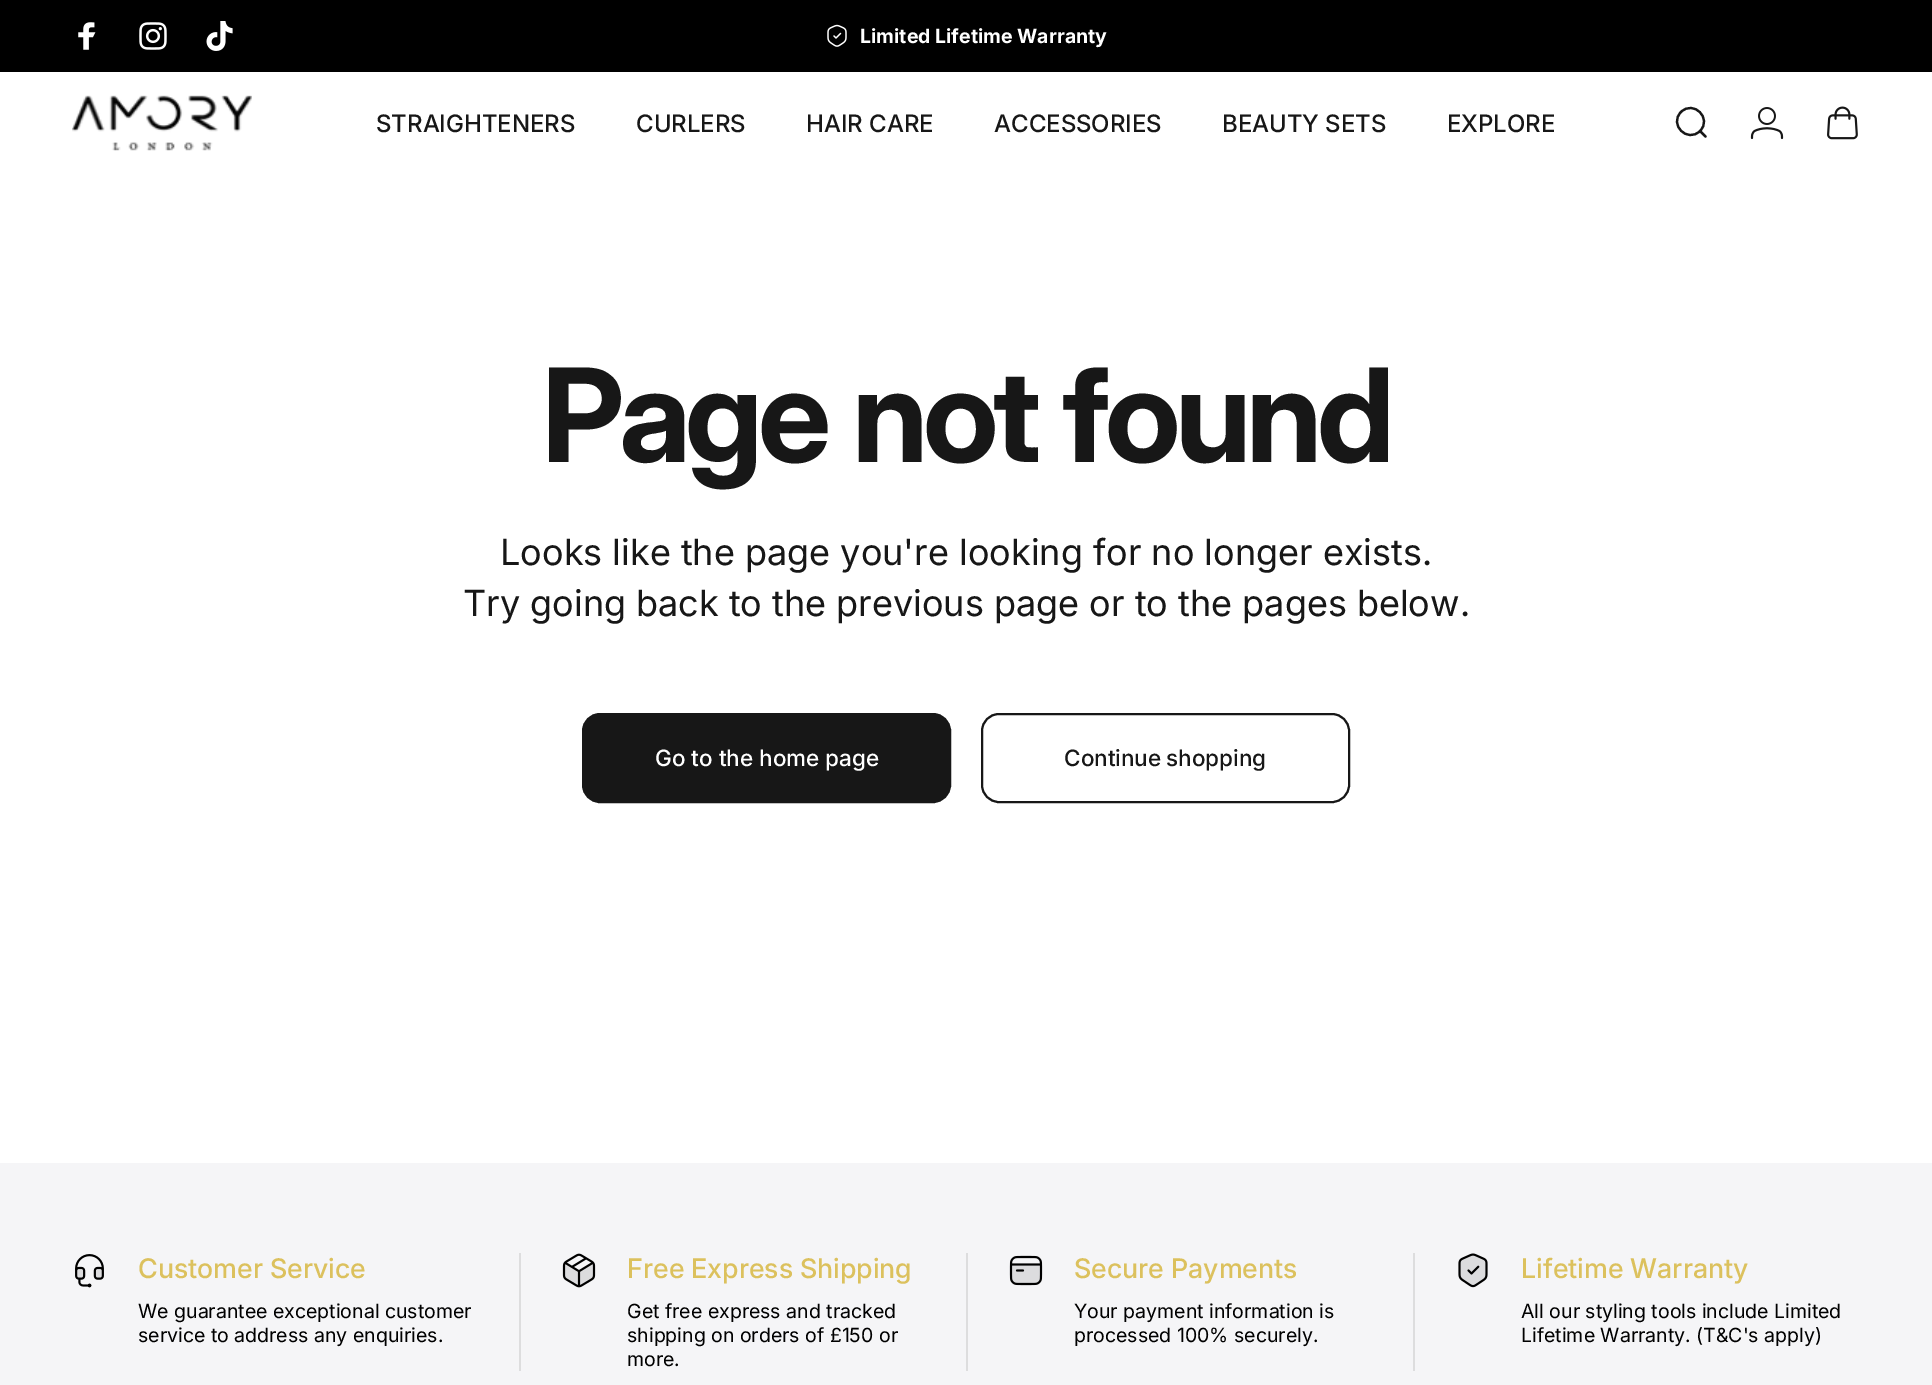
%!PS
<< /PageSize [1932 1385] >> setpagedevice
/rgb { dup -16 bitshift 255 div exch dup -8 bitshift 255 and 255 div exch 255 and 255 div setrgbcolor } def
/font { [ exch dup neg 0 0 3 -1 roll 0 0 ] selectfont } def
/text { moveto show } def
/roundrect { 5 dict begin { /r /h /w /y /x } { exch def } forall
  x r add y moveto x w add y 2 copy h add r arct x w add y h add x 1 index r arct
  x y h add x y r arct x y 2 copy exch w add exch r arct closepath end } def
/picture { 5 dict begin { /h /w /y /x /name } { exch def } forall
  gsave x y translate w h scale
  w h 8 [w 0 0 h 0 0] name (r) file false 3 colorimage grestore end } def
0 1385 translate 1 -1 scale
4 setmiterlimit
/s1 { /Inter-Bold 19.5 font 16#FFFFFF rgb } def
/s2 { /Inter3-Medium 24 font 16#171717 rgb } def
/s3 { /Inter-Regular 36 font 16#171717 rgb } def
/s4 { /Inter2-Medium 22.5 font 16#FFFFFF rgb } def
/s5 { /Inter-Medium 27 font 16#DCC15D rgb } def
/s6 { /Inter-Regular 19.5 font 16#000000 rgb } def
16#FFFFFF rgb
0 0 1932 1385 rectfill
16#000000 rgb
0 0 1932 72 rectfill
(pic1.raw) 78 22 18 28 picture
(pic2.raw) 139 22 28 28 picture
(pic3.raw) 206 21 27 30 picture
(pic4.raw) 827 24 20 23 picture
s1
(Limited Lifetime Warranty) 860 43 text
(pic5.raw) 72 95 180 56 picture
s2
(STRAIGHTENERS) 376 132 text
(CURLERS) 636 132 text
(HAIR CARE) 806 132 text
(ACCESSORIES) 994 132 text
(BEAUTY SETS) 1222 132 text
(EXPLORE) 1447 132 text
2.2 setlinewidth
1 setlinecap
1705.5 136.5 moveto 1700 131 lineto 1700 131 moveto 1712.5 118.5 1693.5 99.5 1681 112 curveto 1668.5 124.5 1687.5 143.5 1700 131 curveto closepath stroke
(pic6.raw) 1750 107 34 33 picture
(pic7.raw) 1827 106 31 34 picture
/Inter2-Bold 130 font
542 462 moveto -5.25 0 (Page) ashow
852 462 moveto -5.25 0 (not) ashow
1062 462 moveto -5.25 0 (found) ashow
s3
(Looks like the page you're looking for no longer exists.) 500 565 text
(Try going back to the previous page or to the pages below.) 463 616 text
583 714 367 88 17 roundrect gsave fill grestore
2 setlinewidth
0 setlinecap
stroke
s4
(Go to the home page) 655 766 text
16#171717 rgb
982 714 367 88 17 roundrect stroke
1064 766 moveto -1 0 32 (Continue shopping) widthshow
16#F5F5F7 rgb
0 1163 1932 222 rectfill
(pic8.raw) 75 1254 29 34 picture
s5
(Customer Service) 138 1278 text
s6
(We guarantee exceptional customer) 138 1318 text
(service to address any enquiries.) 138 1342 text
16#DDDDDE rgb
519 1253 2 118 rectfill
(pic9.raw) 562 1253 34 35 picture
s5
(Free Express Shipping) 627 1278 text
s6
(Get free express and tracked) 627 1318 text
(shipping on orders of £150 or) 627 1342 text
(more.) 627 1366 text
16#DDDDDE rgb
966 1253 2 118 rectfill
(pic10.raw) 1009 1255 34 31 picture
s5
(Secure Payments) 1074 1278 text
s6
(Your payment information is) 1074 1318 text
(processed 100% securely.) 1074 1342 text
16#DDDDDE rgb
1413 1253 2 118 rectfill
(pic11.raw) 1458 1253 30 35 picture
s5
(Lifetime Warranty) 1521 1278 text
s6
(All our styling tools include Limited) 1521 1318 text
(Lifetime Warranty. \(T&C's apply\)) 1521 1342 text
showpage
